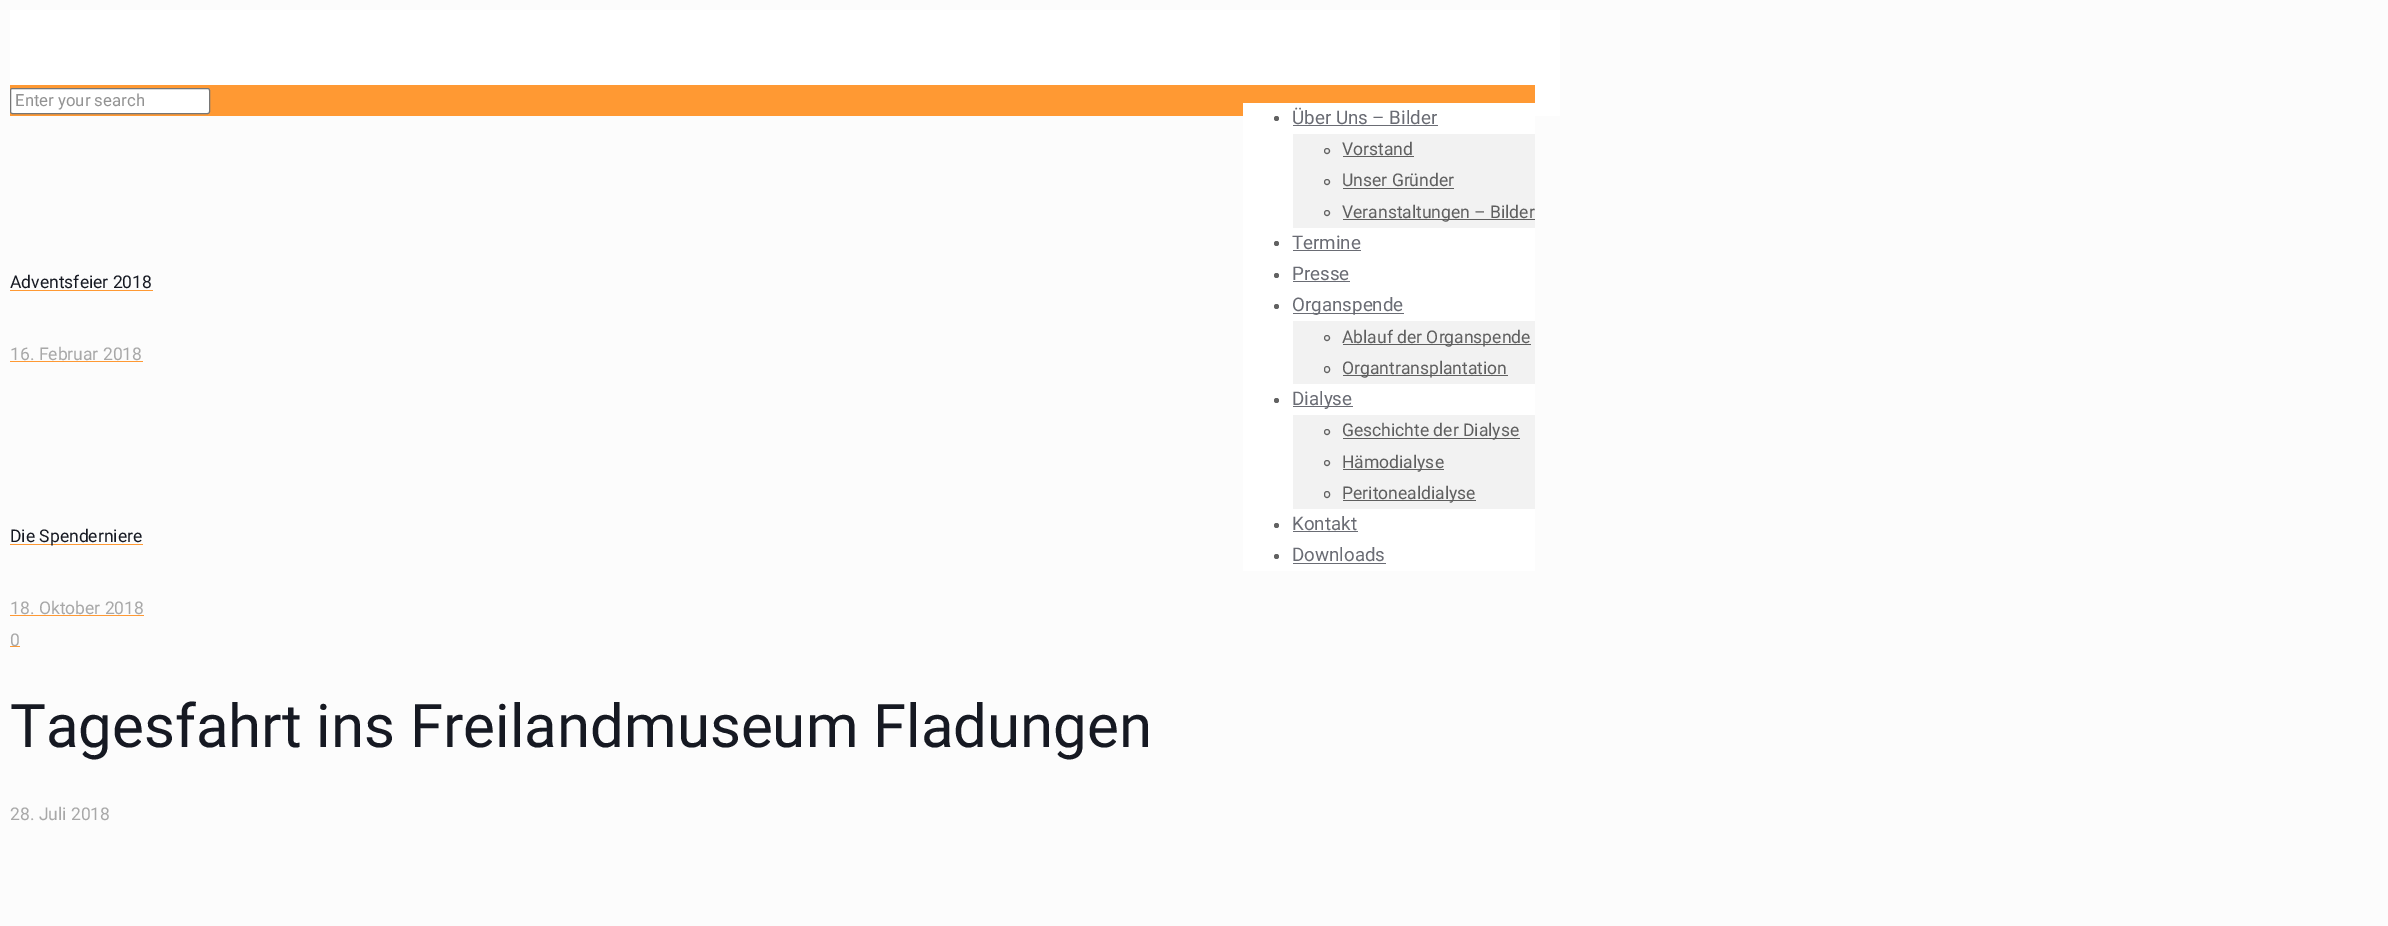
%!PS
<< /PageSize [2388 926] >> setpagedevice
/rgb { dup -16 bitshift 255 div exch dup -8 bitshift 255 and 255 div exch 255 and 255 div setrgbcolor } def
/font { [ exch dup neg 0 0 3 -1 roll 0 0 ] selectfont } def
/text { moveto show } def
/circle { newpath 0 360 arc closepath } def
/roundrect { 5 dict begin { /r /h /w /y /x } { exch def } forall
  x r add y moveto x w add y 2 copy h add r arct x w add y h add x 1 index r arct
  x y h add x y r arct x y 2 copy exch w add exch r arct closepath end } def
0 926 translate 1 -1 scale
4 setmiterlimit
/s1 { /Roboto-Regular 16.75 font 16#929292 rgb } def
/s2 { /Roboto-Regular 18.75 font 16#6A6C74 rgb } def
/s3 { /Roboto-Regular 17.5 font 16#5F5F5F rgb } def
/s4 { /Roboto-Regular 17.5 font 16#161922 rgb } def
/s5 { /Roboto-Regular 17.5 font 16#A8A8A8 rgb } def
/s6 { /Roboto-Regular 60 font 16#161922 rgb } def
16#FCFCFC rgb
0 0 2388 926 rectfill
16#FFFFFF rgb
10 10 1550 106 rectfill
16#FF9933 rgb
10 85 1525 31 rectfill
16#FFFFFF rgb
10.5 88.5 199 25 2 roundrect gsave fill grestore
16#767676 rgb
stroke
s1
(Enter your search) 15 106 text
16#FFFFFF rgb
1243 103 292 468 rectfill
16#626262 rgb
1276.5 118.5 2.5 circle fill
s2
(Über Uns – Bilder) 1292 124 text
1293 125 145 1 rectfill
16#F2F2F2 rgb
1293 134 242 94 rectfill
16#626262 rgb
1327 151 2.5 circle stroke
s3
(Vorstand) 1342 155 text
1343 156 71 1 rectfill
16#626262 rgb
1327 182 2.5 circle stroke
s3
(Unser Gründer) 1342 186 text
1343 188 111 1 rectfill
16#626262 rgb
1327 213 2.5 circle stroke
16#5F5F5F rgb
1343 219 192 1 rectfill
(Veranstaltungen – Bilder) 1342 218 text
16#626262 rgb
1276.5 243.5 2.5 circle fill
s2
(Termine) 1292 249 text
1293 250 68 1 rectfill
16#626262 rgb
1276.5 275.5 2.5 circle fill
s2
(Presse) 1292 280 text
1293 281 57 1 rectfill
16#626262 rgb
1276.5 306.5 2.5 circle fill
16#6A6C74 rgb
1293 313 111 1 rectfill
(Organspende) 1292 311 text
16#F2F2F2 rgb
1293 321 242 63 rectfill
16#626262 rgb
1327 338 2.5 circle stroke
16#5F5F5F rgb
1343 344 188 1 rectfill
s3
(Ablauf der Organspende) 1342 343 text
16#626262 rgb
1324.5 366.5 5 6 2.5 roundrect stroke
16#5F5F5F rgb
1343 375 165 1 rectfill
(Organtransplantation) 1342 374 text
16#626262 rgb
1276.5 400.5 2.5 circle fill
16#6A6C74 rgb
1293 406 60 1 rectfill
s2
(Dialyse) 1292 405 text
16#F2F2F2 rgb
1293 415 242 94 rectfill
16#626262 rgb
1327 432 2.5 circle stroke
16#5F5F5F rgb
1343 438 177 1 rectfill
s3
(Geschichte der Dialyse) 1342 436 text
16#626262 rgb
1327 463 2.5 circle stroke
16#5F5F5F rgb
1343 469 101 1 rectfill
(Hämodialyse) 1342 468 text
16#626262 rgb
1324.5 491.5 5 6 2.5 roundrect stroke
16#5F5F5F rgb
1343 500 133 1 rectfill
(Peritonealdialyse) 1342 499 text
16#626262 rgb
1276.5 525.5 2.5 circle fill
s2
(Kontakt) 1292 530 text
1293 531 65 1 rectfill
16#626262 rgb
1276.5 556.5 2.5 circle fill
s2
(Downloads) 1292 561 text
1293 563 93 1 rectfill
s4
(Adventsfeier 2018) 10 288 text
16#FF9933 rgb
10 290 143 1 rectfill
s5
(16. Februar 2018) 10 360 text
16#FF9933 rgb
10 361 133 1 rectfill
10 544 133 1 rectfill
s4
(Die Spenderniere) 10 542 text
s5
(18. Oktober 2018) 10 614 text
16#FF9933 rgb
10 615 134 1 rectfill
10 646 10 1 rectfill
s5
(0) 10 646 text
s6
(Tagesfahrt ins Freilandmuseum Fladungen) 10 747 text
s5
(28. Juli 2018) 10 820 text
showpage
